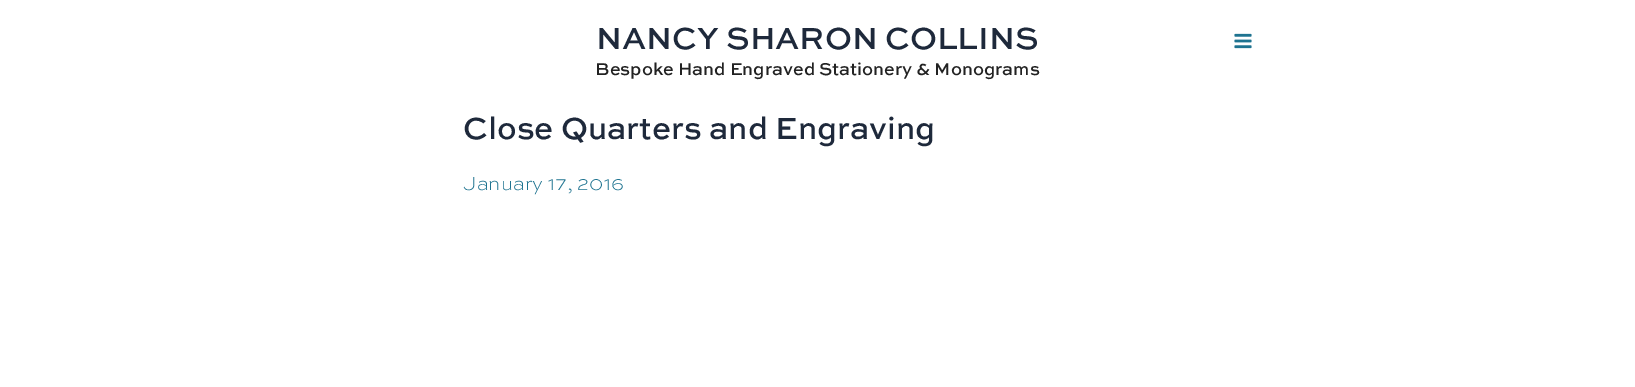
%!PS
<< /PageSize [1635 387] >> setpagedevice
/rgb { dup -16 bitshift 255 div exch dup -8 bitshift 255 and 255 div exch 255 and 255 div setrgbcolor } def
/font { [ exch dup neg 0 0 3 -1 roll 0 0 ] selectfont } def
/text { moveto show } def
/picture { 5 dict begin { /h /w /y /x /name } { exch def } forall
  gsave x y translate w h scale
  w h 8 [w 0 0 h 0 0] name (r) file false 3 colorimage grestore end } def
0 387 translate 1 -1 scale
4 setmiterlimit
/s1 { /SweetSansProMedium-Medium 32 font 16#1E293B rgb } def
/s2 { /SweetSansProMedium-Medium 18 font 16#222222 rgb } def
/s3 { /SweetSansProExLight-Light 20 font 16#1E7390 rgb } def
16#FFFFFF rgb
0 0 1635 387 rectfill
s1
(NANCY SHARON COLLINS) 596 49 text
s2
(Bespoke Hand Engraved Stationery & Monograms) 595 75 text
(pic1.raw) 1234 33 18 16 picture
s1
(Close Quarters and Engraving) 463 139 text
s3
(January 17, 2016) 463 190 text
showpage
